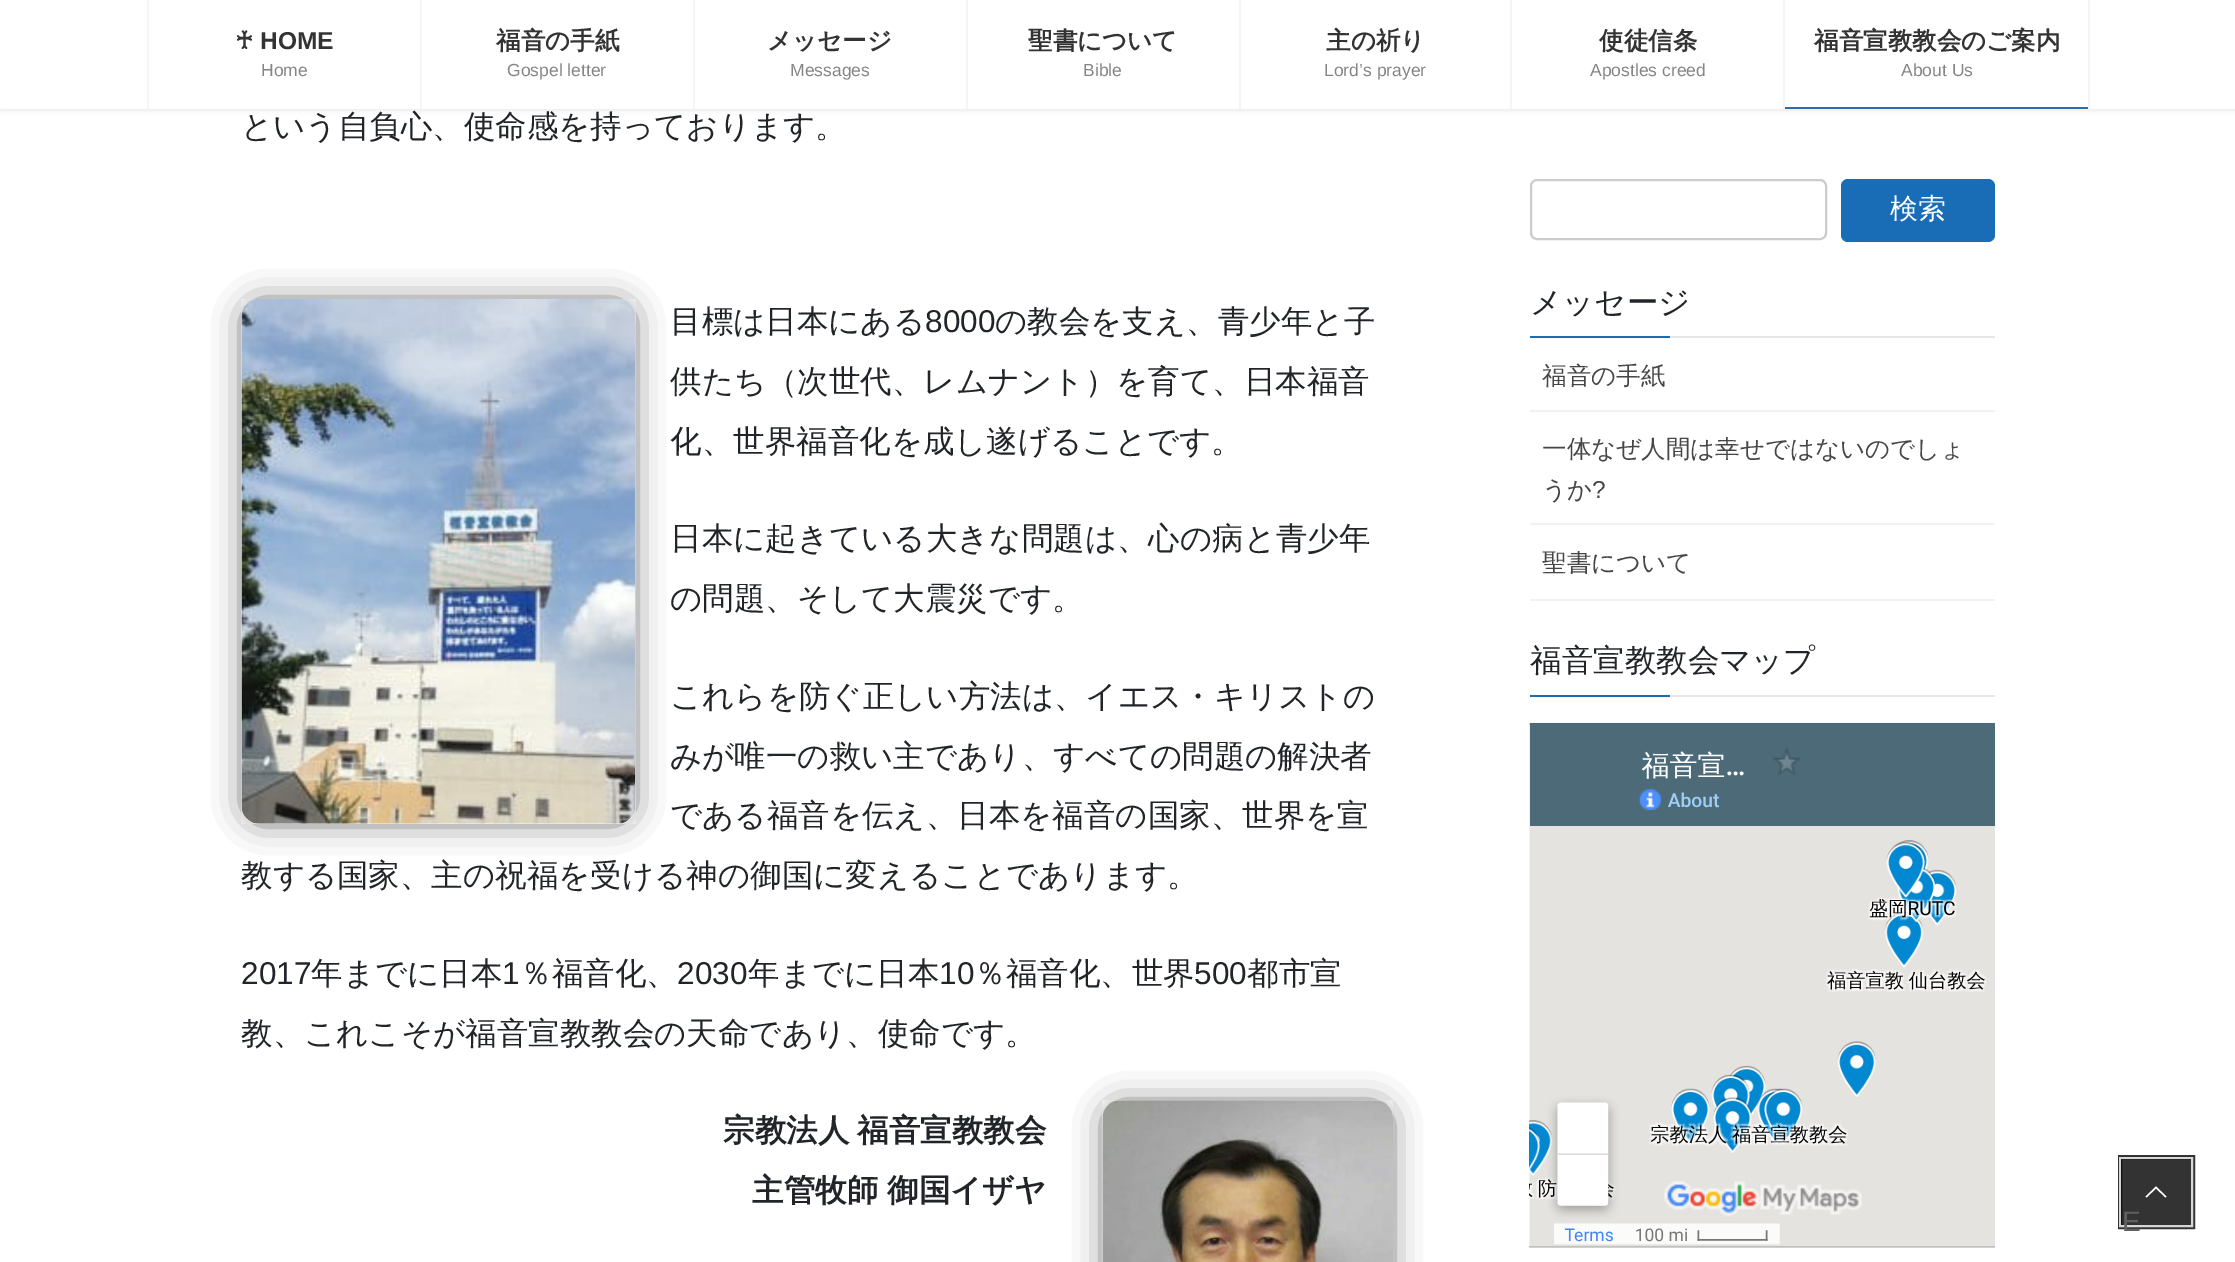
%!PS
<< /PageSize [2235 1262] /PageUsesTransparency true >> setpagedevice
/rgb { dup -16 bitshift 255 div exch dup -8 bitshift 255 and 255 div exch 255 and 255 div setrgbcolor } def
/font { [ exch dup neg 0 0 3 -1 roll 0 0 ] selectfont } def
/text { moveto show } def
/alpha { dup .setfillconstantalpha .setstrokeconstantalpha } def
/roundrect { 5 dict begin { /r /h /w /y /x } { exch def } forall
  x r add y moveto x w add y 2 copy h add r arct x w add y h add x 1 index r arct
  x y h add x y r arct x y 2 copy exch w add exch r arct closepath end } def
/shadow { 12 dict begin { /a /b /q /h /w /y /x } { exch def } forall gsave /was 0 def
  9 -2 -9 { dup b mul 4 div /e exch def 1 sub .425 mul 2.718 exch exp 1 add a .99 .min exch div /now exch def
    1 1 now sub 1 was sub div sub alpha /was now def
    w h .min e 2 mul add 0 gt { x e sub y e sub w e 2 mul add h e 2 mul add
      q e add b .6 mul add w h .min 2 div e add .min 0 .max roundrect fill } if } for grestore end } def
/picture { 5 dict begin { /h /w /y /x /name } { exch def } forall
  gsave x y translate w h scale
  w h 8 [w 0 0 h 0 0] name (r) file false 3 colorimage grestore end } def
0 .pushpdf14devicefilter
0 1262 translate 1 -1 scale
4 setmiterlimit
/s1 { /DejaVuSans-Bold 24.5 font 16#333333 rgb } def
/s2 { /LiberationSans-Bold 24.5 font 16#333333 rgb } def
/s3 { /LiberationSans-Regular 17.5 font 16#858585 rgb } def
/s4 { /WenQuanYiZenHei-Bold 24.5 font 16#333333 rgb } def
/s5 { /WenQuanYiZenHei-Medium 31.5 font 16#212529 rgb } def
/s6 { /LiberationSans-Regular 31.5 font 16#212529 rgb } def
/s7 { /WenQuanYiZenHei-Bold 31.5 font 16#212529 rgb } def
/s8 { /WenQuanYiZenHei-Medium 28 font 16#FFFFFF rgb } def
/s9 { /WenQuanYiZenHei-Medium 24.5 font 16#464646 rgb } def
/s10 { /LiberationSans-Regular 24.5 font 16#464646 rgb } def
/s11 { /LiberationSans-Regular 28 font 16#606060 rgb } def
16#FFFFFF rgb
0 0 2235 1262 rectfill
16#000000 rgb
0 2 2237 108 0 2.5 0.1 shadow
16#FFFFFF rgb
0 0 2235 109 rectfill
16#F5F5F5 rgb
147 0 2 109 rectfill
s1
(♰) 235 49 text
s2
(HOME) 260 49 text
s3
(Home) 261 76 text
16#F5F5F5 rgb
420 0 2 109 rectfill
s4
(福音の手紙) 496 49 text
s3
(Gospel letter) 507 76 text
16#F5F5F5 rgb
693 0 2 109 rectfill
s4
(メッセージ) 767 49 text
s3
(Messages) 790 76 text
16#F5F5F5 rgb
966 0 2 109 rectfill
s4
(聖書について) 1028 49 text
s3
(Bible) 1083 76 text
16#F5F5F5 rgb
1239 0 2 109 rectfill
s4
(主の祈り) 1326 49 text
s3
(Lord’s prayer) 1324 76 text
16#F5F5F5 rgb
1510 0 2 109 rectfill
s4
(使徒信条) 1599 49 text
s3
(Apostles creed) 1590 76 text
16#F5F5F5 rgb
2088 0 2 109 rectfill
1783 0 2 109 rectfill
s4
(福音宣教教会のご案内) 1814 49 text
s3
(About Us) 1901 76 text
16#2E6DA4 rgb
1785 107 303 2 rectfill
s5
(という自負心、使命感を持っております。) 241 137 text
16#000000 rgb
250 308 377 508 9 17.5 0.8 shadow
(pic1.raw) 241 299 395 525 picture
s5
(目標は日本にある) 670 332 text
s6
(8000) 925 332 text
s5
(の教会を支え、青少年と子) 995 332 text
(供たち（次世代、レムナント）を育て、日本福音) 670 392 text
(化、世界福音化を成し遂げることです。) 670 452 text
(日本に起きている大きな問題は、心の病と青少年) 670 549 text
(の問題、そして大震災です。) 670 609 text
(これらを防ぐ正しい方法は、イエス・キリストの) 670 707 text
(みが唯一の救い主であり、すべての問題の解決者) 670 767 text
(である福音を伝え、日本を福音の国家、世界を宣) 670 826 text
(教する国家、主の祝福を受ける神の御国に変えることであります。) 241 886 text
s6
(2017) 241 984 text
s5
(年までに日本) 311 984 text
s6
(1) 502 984 text
s5
(％福音化、) 520 984 text
s6
(2030) 677 984 text
s5
(年までに日本) 748 984 text
s6
(10) 939 984 text
s5
(％福音化、世界) 974 984 text
s6
(500) 1194 984 text
s5
(都市宣) 1247 984 text
(教、これこそが福音宣教教会の天命であり、使命です。) 241 1044 text
/WenQuanYiZenHei-Bold 31.5 font
723 1141 moveto -1 0 32 (宗教法人 福音宣教教) widthshow
(会) 1015 1141 text
(主管牧師) 752 1201 text
(御国イザヤ) 887 1201 text
16#000000 rgb
1111 1110 273 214 9 17.5 0.8 shadow
(pic2.raw) 1102 1100 291 162 picture
16#CCCCCC rgb
2 setlinewidth
1531 180 295 59 6 roundrect stroke
16#196DB7 rgb
1841 179 154 63 7 roundrect fill
s8
(検索) 1890 218 text
16#E6E6E6 rgb
1670 336 325 2 rectfill
s5
(メッセージ) 1530 313 text
16#196DB7 rgb
1530 336 140 2 rectfill
16#F2F2F2 rgb
1530 410 465 2 rectfill
s9
(福音の手紙) 1542 384 text
16#F2F2F2 rgb
1530 523 465 2 rectfill
s9
(一体なぜ人間は幸せではないのでしょ) 1542 457 text
(うか) 1542 498 text
s10
(?) 1592 498 text
16#F2F2F2 rgb
1530 599 465 2 rectfill
s9
(聖書について) 1542 571 text
16#E6E6E6 rgb
1670 695 325 2 rectfill
s5
(福音宣教教会マップ) 1530 671 text
16#196DB7 rgb
1530 695 140 2 rectfill
(pic3.raw) 1529 722 466 526 picture
16#333333 rgb
4 setlinewidth
2120 1157 73 70 rectstroke
16#D6D6D6 rgb
2 setlinewidth
2120 1158 72 68 rectstroke
0.8 alpha
16#000000 rgb
2121 1159 70 66 rectfill
1 alpha
16#FFFFFF rgb
2166.5 1196.5 moveto 2165.5 1197.5 lineto 2156 1188.5 lineto 2146.5 1197.5 lineto 2145.5 1196.5 lineto 2156 1186.5 lineto closepath fill
s11
(E) 2122 1231 text
.poppdf14devicefilter showpage
